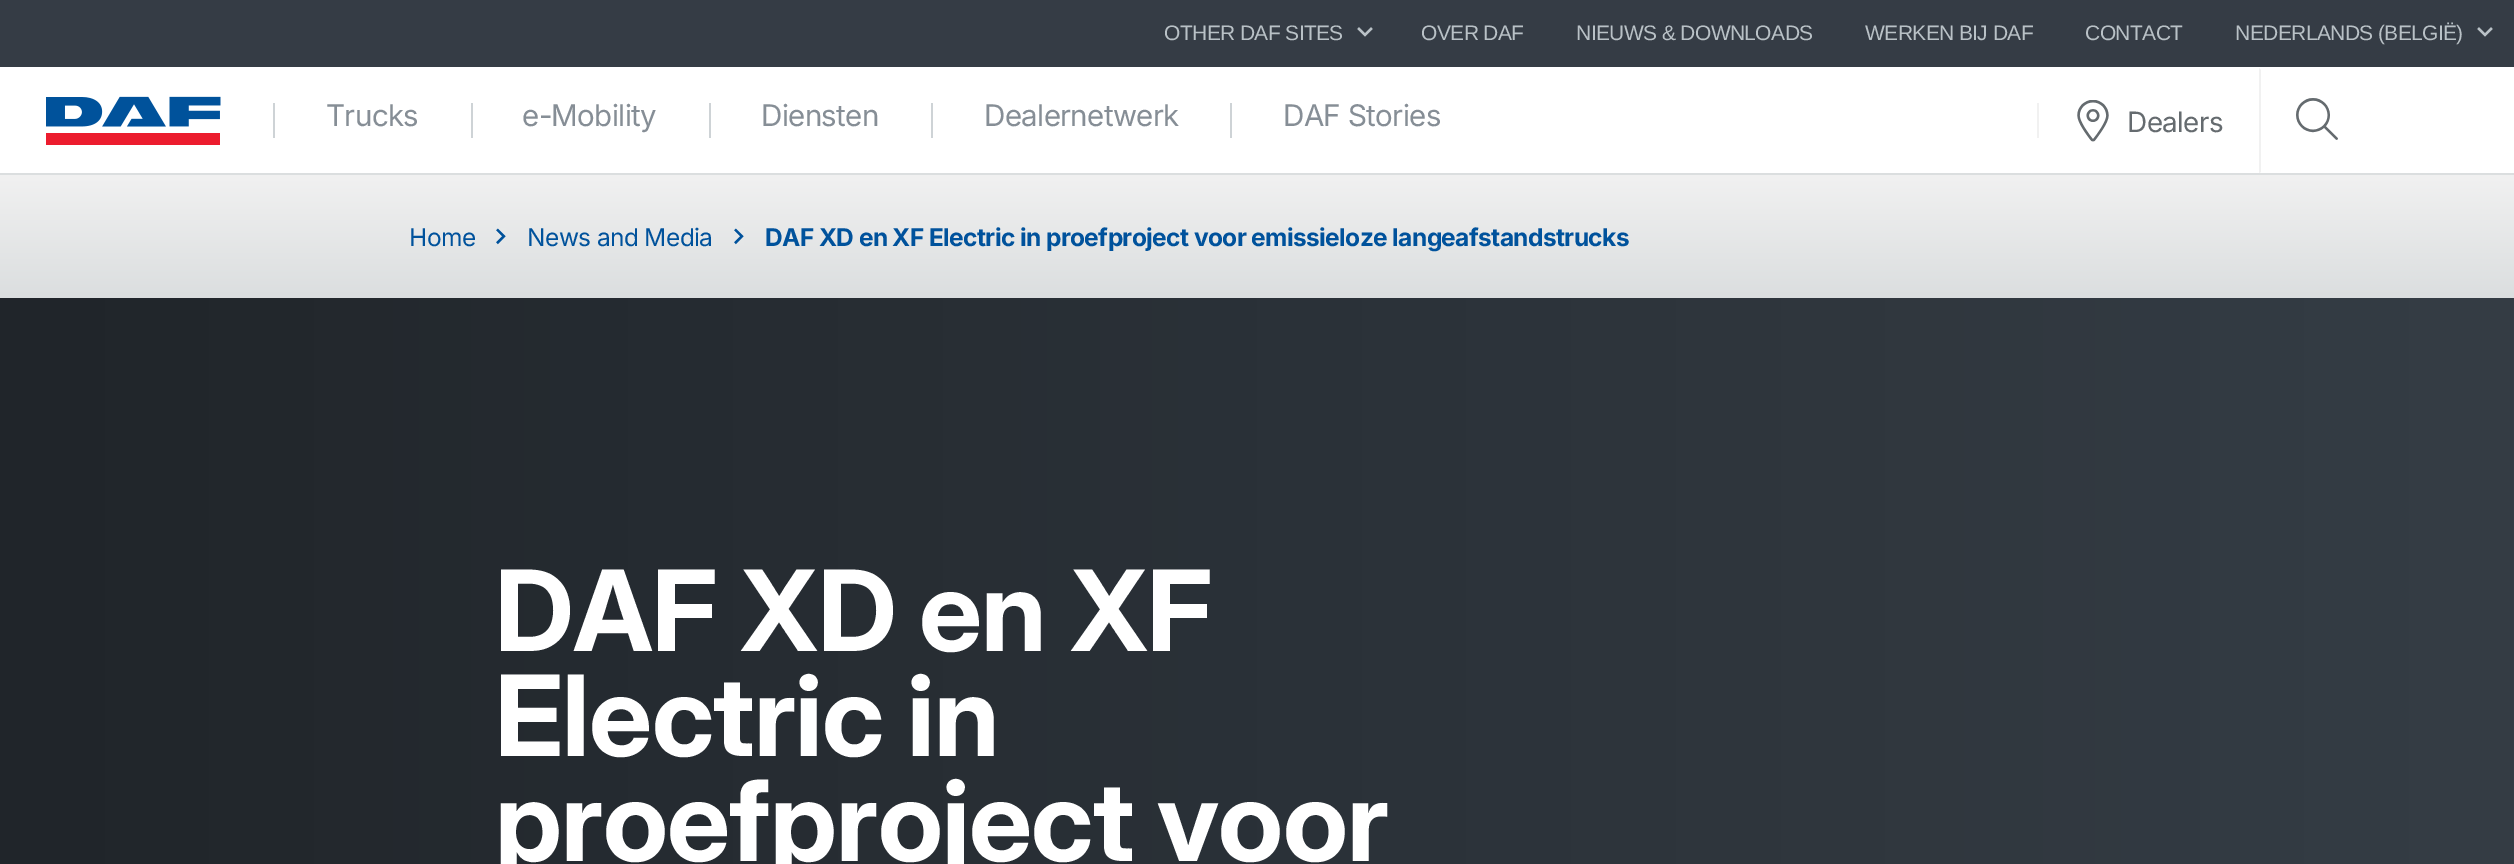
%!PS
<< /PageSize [2514 864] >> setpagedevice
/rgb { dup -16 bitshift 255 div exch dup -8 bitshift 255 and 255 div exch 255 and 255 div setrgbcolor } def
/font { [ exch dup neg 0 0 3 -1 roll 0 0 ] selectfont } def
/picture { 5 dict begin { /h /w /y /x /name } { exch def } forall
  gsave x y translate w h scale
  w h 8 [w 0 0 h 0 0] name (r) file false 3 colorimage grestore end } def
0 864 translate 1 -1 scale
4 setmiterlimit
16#FFFFFF rgb
0 0 2514 864 rectfill
16#353C45 rgb
0 0 2514 67 rectfill
/LiberationSans-Regular 21 font
16#B9C1C6 rgb
1164 40 moveto -0.6 0 (OTHER DAF SITES) ashow
(pic1.raw) 1357 27 16 10 picture
1421 40 moveto -0.6 0 (OVER DAF) ashow
1576 40 moveto -0.6 0 (NIEUWS & DOWNLOADS) ashow
1865 40 moveto -0.6 0 (WERKEN BIJ DAF) ashow
2085 40 moveto -0.6 0 (CONTACT) ashow
2235 40 moveto -0.6 0 (NEDERLANDS \(BELGIË\)) ashow
(pic1.raw) 2477 27 16 10 picture
16#DBDEDF rgb
0 173 2514 2 rectfill
(pic2.raw) 46 96 175 49 picture
16#CED3D6 rgb
273 103 2 35 rectfill
/Inter-Regular 29.75 font
16#868E96 rgb
326 126 moveto -0.6 0 (Trucks) ashow
16#CED3D6 rgb
471 103 2 35 rectfill
16#868E96 rgb
522 126 moveto -0.6 0 (e-Mobility) ashow
16#CED3D6 rgb
709 103 2 35 rectfill
16#868E96 rgb
761 126 moveto -0.6 0 (Diensten) ashow
16#CED3D6 rgb
931 103 2 35 rectfill
16#868E96 rgb
984 126 moveto -0.6 0 (Dealernetwerk) ashow
16#CED3D6 rgb
1230 103 2 35 rectfill
16#868E96 rgb
1283 126 moveto -0.6 0 (DAF Stories) ashow
16#F1F1F1 rgb
2037 103 2 35 rectfill
(pic3.raw) 2077 100 32 42 picture
/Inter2-Regular 28 font
16#656B6F rgb
2127 132 moveto -0.6 0 (Dealers) ashow
16#F1F1F1 rgb
2259 173 moveto 2259 68 lineto 2261 70 lineto 2261 172 lineto closepath fill
(pic4.raw) 2296 98 42 42 picture
gsave 0 175 moveto 2514 175 lineto 2514 298 lineto 0 298 lineto closepath clip newpath
<< /ShadingType 2 /ColorSpace /DeviceRGB /Coords [1257 175 1257 298] /Extend [true true] /Function << /FunctionType 2 /Domain [0 1] /C0 [0.945 0.945 0.945] /C1 [0.859 0.871 0.875] /N 1 >> >> shfill grestore
/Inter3-Regular 24.5 font
16#00529C rgb
409 246 moveto -0.6 0 (Home) ashow
(pic5.raw) 496 228 10 17 picture
527 246 moveto -0.6 0 (News and Media) ashow
(pic5.raw) 734 228 10 17 picture
/Inter-Bold 24.5 font
765 246 moveto -0.6 0 (DAF XD en XF Electric in proefproject voor emissieloze langeafstandstrucks) ashow
gsave 0 298 moveto 2514 298 lineto 2514 864 lineto 0 864 lineto closepath clip newpath
<< /ShadingType 2 /ColorSpace /DeviceRGB /Coords [0 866 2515 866] /Extend [true true] /Function << /FunctionType 2 /Domain [0 1] /C0 [0.125 0.145 0.165] /C1 [0.208 0.239 0.271] /N 1 >> >> shfill grestore
/Inter2-Bold 112 font
16#FFFFFF rgb
495 651 moveto -0.6 0 (DAF XD en XF) ashow
495 756 moveto -0.6 0 (Electric in) ashow
495 861 moveto -0.6 0 (proefproject voor) ashow
showpage
